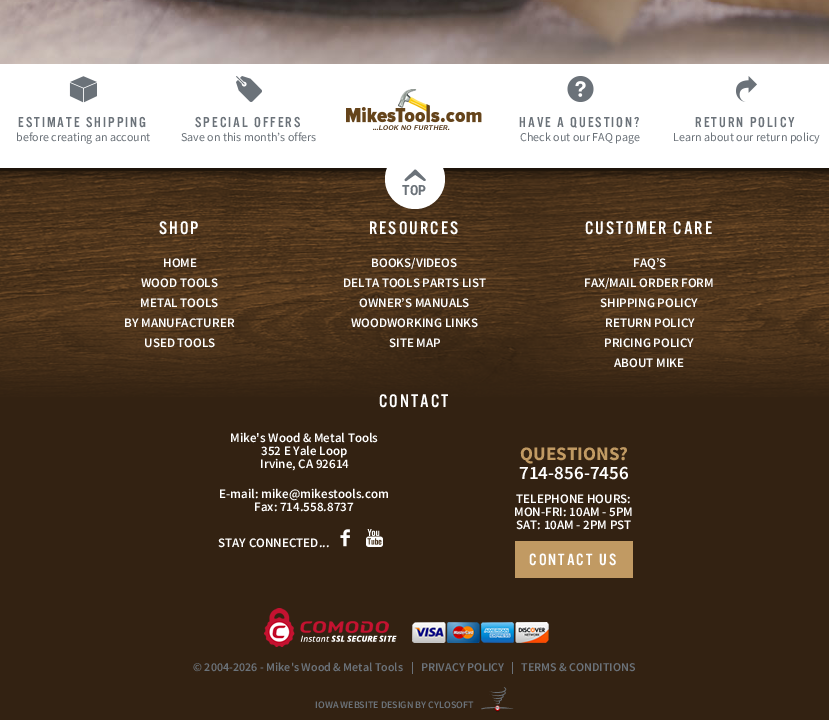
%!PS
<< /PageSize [829 720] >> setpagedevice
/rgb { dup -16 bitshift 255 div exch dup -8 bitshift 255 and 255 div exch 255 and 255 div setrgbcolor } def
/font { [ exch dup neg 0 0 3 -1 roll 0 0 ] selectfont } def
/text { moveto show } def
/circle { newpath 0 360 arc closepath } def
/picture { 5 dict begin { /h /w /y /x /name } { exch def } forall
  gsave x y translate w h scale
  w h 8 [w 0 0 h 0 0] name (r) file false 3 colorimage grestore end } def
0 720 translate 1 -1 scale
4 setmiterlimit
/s1 { /SourceSansPro-Regular 12 font 16#6B7279 rgb } def
/s2 { /RobotoCondensed-Bold 14 font 16#6B7279 rgb } def
/s3 { /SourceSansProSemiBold-SemiBold 13 font 16#FFFFFF rgb } def
/s4 { /SourceSansPro-Bold 19 font 16#C19A63 rgb } def
/s5 { /SourceSansProSemiBold-SemiBold 19 font 16#FFFFFF rgb } def
/s6 { /SourceSansProSemiBold-SemiBold 12 font 16#6B7279 rgb } def
/s7 { /SourceSansProSemiBold-SemiBold 10 font 16#6B7279 rgb } def
16#FFFFFF rgb
0 0 829 720 rectfill
(pic1.raw) 0 0 829 64 picture
16#332212 rgb
0 168 829 552 rectfill
(pic2.raw) 0 171 829 226 picture
(pic3.raw) 69 76 28 27 picture
/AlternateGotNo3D-Regular 15 font
16#6B7279 rgb
18 127 moveto 2 0 (ESTIMATE SHIPPING) ashow
s1
(before creating an account) 16 141 text
(pic4.raw) 236 76 26 26 picture
/AlternateGotNo3D-Regular 15 font
195 127 moveto 2 0 (SPECIAL OFFERS) ashow
s1
(Save on this month’s offers) 181 141 text
(pic5.raw) 346 89 136 41 picture
(pic6.raw) 567 76 27 26 picture
/AlternateGotNo3D-Regular 15 font
519 127 moveto 2 0 (HAVE A QUESTION?) ashow
s1
(Check out our FAQ page) 520 141 text
(pic7.raw) 736 76 21 26 picture
/AlternateGotNo3D-Regular 15 font
695 127 moveto 2 0 (RETURN POLICY) ashow
s1
(Learn about our return policy) 673 141 text
(pic9.raw) 0 168 829 11 picture
16#FFFFFF rgb
415 179 30 circle fill
(pic8.raw) 404 169 22 13 picture
s2
(TOP) 402 195 text
/AlternateGotNo3D-Regular 19 font
16#FFFFFF rgb
159 234 moveto 2 0 (SHOP) ashow
s3
(HOME) 163 267 text
(WOOD TOOLS) 141 287 text
(METAL TOOLS) 140 307 text
(BY MANUFACTURER) 124 327 text
(USED TOOLS) 144 347 text
/AlternateGotNo3D-Regular 19 font
369 234 moveto 2 0 (RESOURCES) ashow
s3
(BOOKS/VIDEOS) 371 267 text
(DELTA TOOLS PARTS LIST) 343 287 text
(OWNER’S MANUALS) 359 307 text
(WOODWORKING LINKS) 351 327 text
(SITE MAP) 389 347 text
/AlternateGotNo3D-Regular 19 font
585 234 moveto 2 0 (CUSTOMER CARE) ashow
s3
(FAQ’S) 633 267 text
(FAX/MAIL ORDER FORM) 584 287 text
(SHIPPING POLICY) 600 307 text
(RETURN POLICY) 605 327 text
(PRICING POLICY) 604 347 text
(ABOUT MIKE) 614 367 text
/AlternateGotNo3D-Regular 19 font
379 407 moveto 2 0 (CONTACT) ashow
s3
(Mike's Wood & Metal Tools) 230 442 text
(352 E Yale Loop) 261 455 text
(Irvine, CA 92614) 260 468 text
(E-mail: mike@mikestools.com) 219 498 text
(Fax: 714.558.8737) 254 511 text
(STAY CONNECTED...) 218 547 text
(pic10.raw) 340 529 10 18 picture
(pic11.raw) 366 529 17 18 picture
s4
(QUESTIONS?) 520 460 text
s5
(714-856-7456) 519 479 text
s3
(TELEPHONE HOURS:) 516 503 text
(MON-FRI: 10AM - 5PM) 514 516 text
(SAT: 10AM - 2PM PST) 516 529 text
16#C19A63 rgb
515 541 118 37 rectfill
/AlternateGotNo3D-Regular 17 font
16#FFFFFF rgb
529 565 moveto 2 0 (CONTACT US) ashow
(pic12.raw) 264 608 133 39 picture
(pic13.raw) 412 622 137 21 picture
s6
(© 2004-2026 - Mike's Wood & Metal Tools) 193 671 text
(|) 411 671 text
(PRIVACY POLICY) 421 671 text
(|) 511 671 text
(TERMS & CONDITIONS) 521 671 text
(pic14.raw) 481 687 33 25 picture
s7
(IOWA WEBSITE DESIGN BY CYLOSOFT) 315 708 text
showpage
